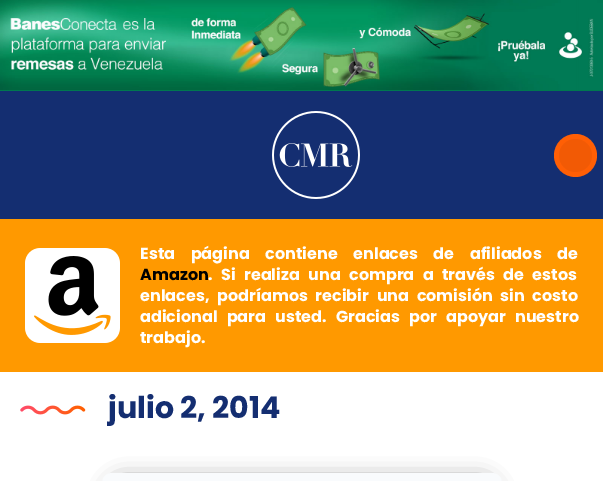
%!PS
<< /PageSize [603 481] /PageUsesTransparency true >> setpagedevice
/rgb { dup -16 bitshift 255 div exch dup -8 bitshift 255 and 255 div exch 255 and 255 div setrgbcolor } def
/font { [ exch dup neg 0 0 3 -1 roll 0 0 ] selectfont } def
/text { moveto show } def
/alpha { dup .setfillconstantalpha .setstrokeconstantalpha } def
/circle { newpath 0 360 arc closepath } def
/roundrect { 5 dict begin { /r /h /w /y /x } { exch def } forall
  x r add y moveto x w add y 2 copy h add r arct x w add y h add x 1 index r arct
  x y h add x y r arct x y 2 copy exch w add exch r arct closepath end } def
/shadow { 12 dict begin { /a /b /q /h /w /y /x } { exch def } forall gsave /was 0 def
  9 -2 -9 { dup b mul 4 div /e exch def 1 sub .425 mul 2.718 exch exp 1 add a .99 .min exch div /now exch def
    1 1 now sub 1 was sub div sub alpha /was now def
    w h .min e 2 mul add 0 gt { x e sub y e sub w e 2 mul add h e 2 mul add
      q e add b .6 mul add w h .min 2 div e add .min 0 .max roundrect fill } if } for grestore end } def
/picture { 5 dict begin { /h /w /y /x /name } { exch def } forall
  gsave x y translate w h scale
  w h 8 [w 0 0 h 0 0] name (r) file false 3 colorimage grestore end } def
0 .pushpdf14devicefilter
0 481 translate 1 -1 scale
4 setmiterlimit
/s1 { /Poppins-Bold 16 font 16#000000 rgb } def
/s2 { /Poppins-Bold 16 font 16#FFFFFF rgb } def
/s3 { /Poppins-Bold 30 font 16#142E71 rgb } def
16#FFFFFF rgb
0 0 603 481 rectfill
16#00784F rgb
0 90 603 1 rectfill
(pic1.raw) 0 0 603 90 picture
16#142E71 rgb
0 91 603 128 rectfill
(pic2.raw) 272 111 88 88 picture
16#FF5F05 rgb
575.5 155.5 21.5 circle fill
16#F25A05 rgb
575.5 155.5 16.5 circle fill
16#FF9900 rgb
0 219 603 153 rectfill
(pic3.raw) 25 248 95 95 picture
/Poppins-Bold 16 font
16#FFFFFF rgb
140 259 moveto 12.25 0 32 (Esta página contiene enlaces de afiliados de) widthshow
s1
(Amazon) 140 280 text
16#FFFFFF rgb
208 280 moveto 5 0 32 (. Si realiza una compra a través de estos) widthshow
140 301 moveto 4.25 0 32 (enlaces, podríamos recibir una comisión sin costo) widthshow
140 322 moveto 5.75 0 32 (adicional para usted. Gracias por apoyar nuestro) widthshow
(trabajo.) 140 343 text
(pic4.raw) 20 405 66 10 picture
s3
(julio 2, 2014) 108 418 text
16#000000 rgb
109 480 386 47 14 10.5 0.5 shadow
16#F9FBFD rgb
102 473 400 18 10 roundrect fill
.poppdf14devicefilter showpage
